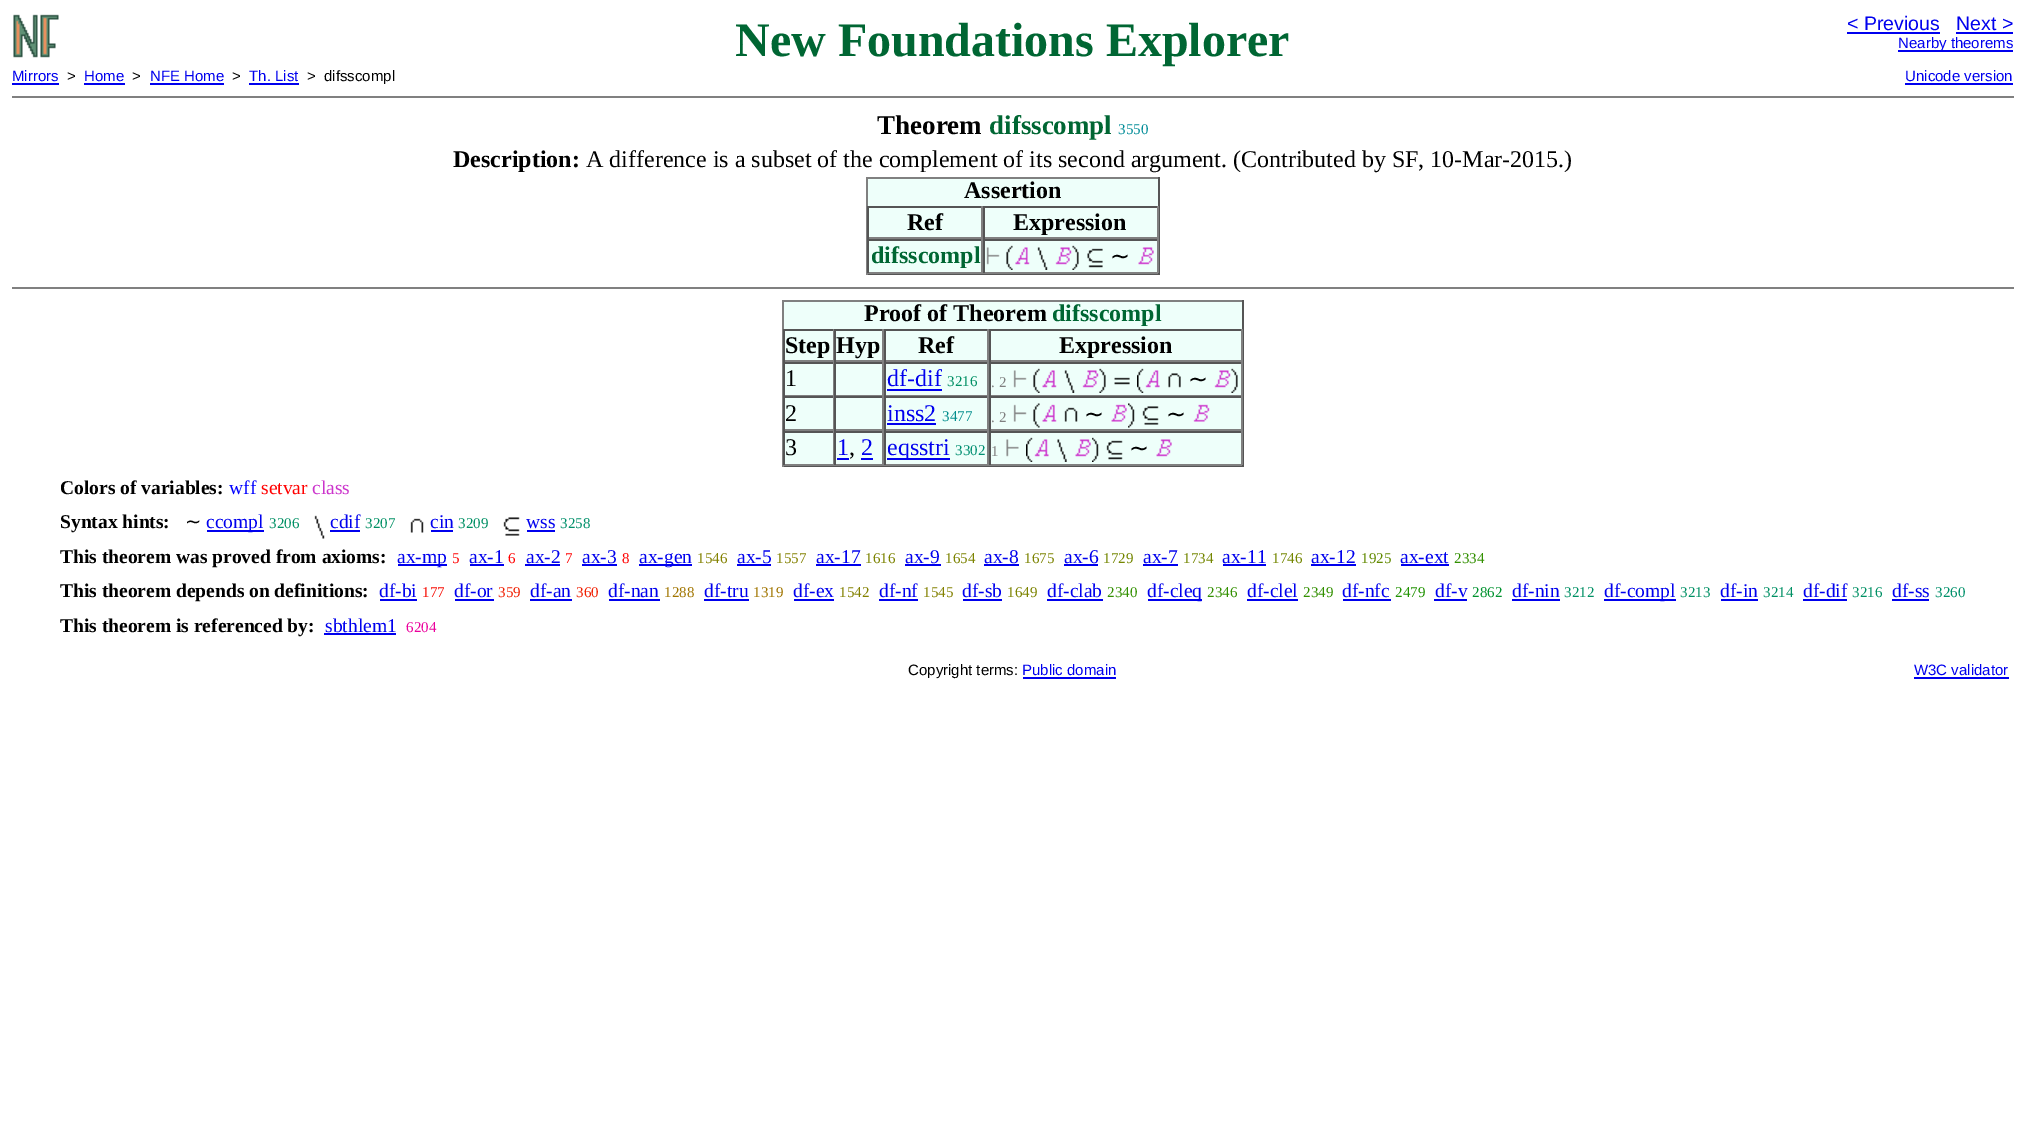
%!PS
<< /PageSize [2024 1123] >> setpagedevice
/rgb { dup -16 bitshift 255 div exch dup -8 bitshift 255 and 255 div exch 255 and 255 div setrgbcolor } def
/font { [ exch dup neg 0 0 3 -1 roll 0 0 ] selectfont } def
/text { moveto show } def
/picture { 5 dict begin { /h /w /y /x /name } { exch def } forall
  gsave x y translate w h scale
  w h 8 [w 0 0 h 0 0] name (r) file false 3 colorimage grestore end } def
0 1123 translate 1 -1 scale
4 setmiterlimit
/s1 { /LiberationSerif-Bold 48 font 16#006633 rgb } def
/s2 { /LiberationSans-Regular 19.5 font 16#0000EE rgb } def
/s3 { /LiberationSans-Regular 15 font 16#0000EE rgb } def
/s4 { /LiberationSans-Regular 15 font 16#000000 rgb } def
/s5 { /LiberationSerif-Bold 27 font 16#000000 rgb } def
/s6 { /LiberationSerif-Bold 27 font 16#006633 rgb } def
/s7 { /LiberationSerif-Regular 15 font 16#008C98 rgb } def
/s8 { /LiberationSerif-Bold 24 font 16#000000 rgb } def
/s9 { /LiberationSerif-Regular 24 font 16#000000 rgb } def
/s10 { /LiberationSerif-Bold 24 font 16#006633 rgb } def
/s11 { /DejaVuSans-Regular 24 font 16#000000 rgb } def
/s12 { /LiberationSerif-Regular 24 font 16#0000EE rgb } def
/s13 { /LiberationSerif-Regular 15 font 16#009064 rgb } def
/s14 { /LiberationSerif-Regular 15 font 16#808080 rgb } def
/s15 { /LiberationSerif-Regular 15 font 16#008D8C rgb } def
/s16 { /LiberationSerif-Regular 15 font 16#008F71 rgb } def
/s17 { /LiberationSerif-Bold 19.5 font 16#000000 rgb } def
/s18 { /LiberationSerif-Regular 19.5 font 16#0000FF rgb } def
/s19 { /LiberationSerif-Regular 19.5 font 16#FF0000 rgb } def
/s20 { /LiberationSerif-Regular 19.5 font 16#CC33CC rgb } def
/s21 { /DejaVuSans-Regular 19.5 font 16#000000 rgb } def
/s22 { /LiberationSerif-Regular 19.5 font 16#0000EE rgb } def
/s23 { /LiberationSerif-Regular 15 font 16#00906A rgb } def
/s24 { /LiberationSerif-Regular 15 font 16#FF0000 rgb } def
/s25 { /LiberationSerif-Regular 15 font 16#838100 rgb } def
/s26 { /LiberationSerif-Regular 15 font 16#7C8300 rgb } def
/s27 { /LiberationSerif-Regular 15 font 16#748600 rgb } def
/s28 { /LiberationSerif-Regular 15 font 16#628A00 rgb } def
/s29 { /LiberationSerif-Regular 15 font 16#329000 rgb } def
/s30 { /LiberationSerif-Regular 15 font 16#F70900 rgb } def
/s31 { /LiberationSerif-Regular 15 font 16#F11E00 rgb } def
/s32 { /LiberationSerif-Regular 15 font 16#A17500 rgb } def
/s33 { /LiberationSerif-Regular 15 font 16#1F9200 rgb } def
/s34 { /LiberationSerif-Regular 15 font 16#00922E rgb } def
/s35 { /LiberationSerif-Regular 15 font 16#EB009C rgb } def
16#FFFFFF rgb
0 0 2024 1123 rectfill
(pic1.raw) 13 14 46 44 picture
s1
(New Foundations Explorer) 735 56 text
s2
(< Previous) 1847 30 text
1847 32 93 2 rectfill
(Next >) 1956 30 text
1956 32 57 2 rectfill
1898 50 115 2 rectfill
s3
(Nearby theorems) 1898 48 text
(Mirrors) 12 81 text
12 83 47 2 rectfill
s4
(>) 67 81 text
s3
(Home) 84 81 text
84 83 41 2 rectfill
s4
(>) 132 81 text
s3
(NFE Home) 150 81 text
150 83 74 2 rectfill
s4
(>) 232 81 text
s3
(Th. List) 249 81 text
249 83 50 2 rectfill
s4
(>) 307 81 text
(difsscompl) 324 81 text
s3
(Unicode version) 1905 81 text
1905 83 108 2 rectfill
16#808080 rgb
12 96 2002 2 rectfill
s5
(Theorem) 877 134 text
s6
(difsscompl) 989 134 text
s7
(3550) 1118 134 text
s8
(Description:) 453 167 text
s9
(A difference is a subset of the complement of its second argument. \(Contributed by SF, 10-Mar-2015.\)) 586 167 text
16#EEFFFA rgb
868 179 290 93 rectfill
16#808080 rgb
866 177 294 2 rectfill
16#555555 rgb
1158 177 2 98 rectfill
866 273 294 2 rectfill
16#808080 rgb
866 177 2 98 rectfill
s8
(Assertion) 964 198 text
16#555555 rgb
867 206 291 2 rectfill
16#808080 rgb
981 206 2 33 rectfill
867 237 116 2 rectfill
16#555555 rgb
867 206 2 33 rectfill
s8
(Ref) 907 230 text
16#808080 rgb
1157 206 2 33 rectfill
983 237 175 2 rectfill
16#555555 rgb
983 206 2 33 rectfill
s8
(Expression) 1013 230 text
16#555555 rgb
867 239 291 2 rectfill
16#808080 rgb
981 239 2 34 rectfill
867 272 116 2 rectfill
16#555555 rgb
867 239 2 34 rectfill
s10
(difsscompl) 871 263 text
16#808080 rgb
1157 239 2 34 rectfill
983 272 175 2 rectfill
16#555555 rgb
983 239 2 34 rectfill
(pic2.raw) 986 247 14 18 picture
(pic3.raw) 1006 245 7 25 picture
(pic4.raw) 1015 247 15 18 picture
(pic5.raw) 1037 247 11 23 picture
(pic6.raw) 1055 247 17 18 picture
(pic7.raw) 1072 245 7 25 picture
(pic8.raw) 1087 248 16 20 picture
s11
(∼) 1110 264 text
(pic9.raw) 1138 247 16 18 picture
16#808080 rgb
12 287 2002 2 rectfill
16#EEFFFA rgb
784 302 458 162 rectfill
16#808080 rgb
782 300 462 2 rectfill
16#555555 rgb
1242 300 2 167 rectfill
782 465 462 2 rectfill
16#808080 rgb
782 300 2 167 rectfill
s8
(Proof of Theorem) 864 321 text
s10
(difsscompl) 1052 321 text
16#555555 rgb
783 329 459 2 rectfill
16#808080 rgb
882 329 2 33 rectfill
834 360 50 2 rectfill
16#555555 rgb
834 329 2 33 rectfill
16#808080 rgb
987 329 2 33 rectfill
884 360 105 2 rectfill
16#555555 rgb
884 329 2 33 rectfill
s8
(Ref) 918 353 text
16#808080 rgb
1241 329 2 33 rectfill
989 360 253 2 rectfill
16#555555 rgb
989 329 2 33 rectfill
s8
(Expression) 1059 353 text
16#808080 rgb
833 329 1 33 rectfill
783 360 51 2 rectfill
16#555555 rgb
783 329 2 33 rectfill
s8
(Step Hyp) 785 353 text
16#555555 rgb
783 362 459 2 rectfill
16#808080 rgb
833 362 1 34 rectfill
783 395 51 1 rectfill
16#555555 rgb
783 362 2 34 rectfill
s9
(1) 785 386 text
16#808080 rgb
882 362 2 34 rectfill
834 395 50 1 rectfill
16#555555 rgb
834 362 2 34 rectfill
16#808080 rgb
987 362 2 34 rectfill
884 395 105 1 rectfill
16#555555 rgb
884 362 2 34 rectfill
s12
(df-dif) 887 386 text
887 389 55 2 rectfill
s13
(3216) 947 386 text
16#808080 rgb
1241 362 2 34 rectfill
989 395 253 1 rectfill
16#555555 rgb
989 362 2 34 rectfill
s14
(. 2) 991 387 text
(pic2.raw) 1013 370 14 18 picture
(pic3.raw) 1033 368 7 25 picture
(pic10.raw) 1042 370 15 18 picture
(pic5.raw) 1064 370 11 23 picture
(pic11.raw) 1082 370 17 18 picture
(pic7.raw) 1099 368 7 25 picture
(pic12.raw) 1114 377 16 8 picture
(pic13.raw) 1137 368 7 25 picture
(pic14.raw) 1145 370 15 18 picture
(pic15.raw) 1168 373 13 15 picture
s11
(∼) 1188 387 text
(pic11.raw) 1214 370 17 18 picture
(pic7.raw) 1231 368 7 25 picture
16#555555 rgb
783 396 459 2 rectfill
16#808080 rgb
833 396 1 35 rectfill
783 429 51 2 rectfill
16#555555 rgb
783 396 2 35 rectfill
s9
(2) 785 421 text
16#808080 rgb
882 396 2 35 rectfill
834 429 50 2 rectfill
16#555555 rgb
834 396 2 35 rectfill
16#808080 rgb
987 396 2 35 rectfill
884 429 105 2 rectfill
16#555555 rgb
884 396 2 35 rectfill
s12
(inss2) 887 421 text
887 423 49 2 rectfill
s15
(3477) 942 421 text
16#808080 rgb
1241 396 2 35 rectfill
989 429 253 2 rectfill
16#555555 rgb
989 396 2 35 rectfill
s14
(. 2) 991 422 text
(pic16.raw) 1013 404 14 18 picture
(pic17.raw) 1033 403 7 25 picture
(pic18.raw) 1042 404 15 18 picture
(pic19.raw) 1064 407 14 15 picture
s11
(∼) 1084 422 text
(pic20.raw) 1111 404 16 18 picture
(pic21.raw) 1128 403 7 25 picture
(pic22.raw) 1142 406 17 19 picture
(∼) 1166 422 text
(pic23.raw) 1193 404 17 18 picture
16#555555 rgb
783 431 459 2 rectfill
16#808080 rgb
833 431 1 34 rectfill
783 464 51 2 rectfill
16#555555 rgb
783 431 2 34 rectfill
s9
(3) 785 455 text
16#808080 rgb
882 431 2 34 rectfill
834 464 50 2 rectfill
16#555555 rgb
834 431 2 34 rectfill
s12
(1) 837 455 text
837 458 12 2 rectfill
s9
(,) 849 455 text
s12
(2) 861 455 text
861 458 12 2 rectfill
16#808080 rgb
987 431 2 34 rectfill
884 464 105 2 rectfill
16#555555 rgb
884 431 2 34 rectfill
16#0000EE rgb
887 458 63 2 rectfill
(eqsstri) 887 455 text
s16
(3302) 955 455 text
16#808080 rgb
1241 431 2 34 rectfill
989 464 253 2 rectfill
16#555555 rgb
989 431 2 34 rectfill
s14
(1) 991 456 text
(pic24.raw) 1006 439 13 18 picture
(pic13.raw) 1026 437 7 25 picture
(pic25.raw) 1034 439 15 18 picture
(pic26.raw) 1057 439 10 23 picture
(pic9.raw) 1075 439 16 18 picture
(pic27.raw) 1092 437 7 25 picture
(pic28.raw) 1106 440 17 20 picture
s11
(∼) 1129 456 text
(pic9.raw) 1156 439 16 18 picture
s17
(Colors of variables:) 60 494 text
s18
(wff) 229 494 text
s19
(setvar) 261 494 text
s20
(class) 312 494 text
s17
(Syntax hints:) 60 528 text
s21
(∼) 185 528 text
16#0000EE rgb
207 530 57 2 rectfill
s22
(ccompl) 206 528 text
s13
(3206) 269 528 text
(pic29.raw) 314 515 11 24 picture
s22
(cdif) 330 528 text
330 530 30 2 rectfill
s13
(3207) 365 528 text
(pic30.raw) 410 518 14 15 picture
s22
(cin) 430 528 text
431 530 22 2 rectfill
s13
(3209) 458 528 text
(pic31.raw) 503 517 17 19 picture
s22
(wss) 526 528 text
527 530 28 2 rectfill
s23
(3258) 560 528 text
s17
(This theorem was proved from axioms:) 60 563 text
16#0000EE rgb
398 564 49 2 rectfill
s22
(ax-mp) 397 563 text
s24
(5) 452 563 text
s22
(ax-1) 469 563 text
470 564 34 2 rectfill
s24
(6) 508 563 text
s22
(ax-2) 526 563 text
525 564 35 2 rectfill
s24
(7) 565 563 text
s22
(ax-3) 582 563 text
582 564 35 2 rectfill
s24
(8) 622 563 text
16#0000EE rgb
639 564 53 2 rectfill
s22
(ax-gen) 639 563 text
s25
(1546) 697 563 text
s22
(ax-5) 737 563 text
737 564 34 2 rectfill
s25
(1557) 776 563 text
s22
(ax-17) 816 563 text
816 564 45 2 rectfill
s26
(1616) 865 563 text
s22
(ax-9) 905 563 text
905 564 36 2 rectfill
s26
(1654) 945 563 text
s22
(ax-8) 984 563 text
984 564 35 2 rectfill
s26
(1675) 1024 563 text
s22
(ax-6) 1064 563 text
1064 564 34 2 rectfill
s27
(1729) 1103 563 text
s22
(ax-7) 1143 563 text
1143 564 35 2 rectfill
s27
(1734) 1183 563 text
s22
(ax-11) 1222 563 text
1223 564 43 2 rectfill
s27
(1746) 1272 563 text
s22
(ax-12) 1311 563 text
1311 564 45 2 rectfill
s28
(1925) 1361 563 text
s22
(ax-ext) 1400 563 text
1401 564 48 2 rectfill
s29
(2334) 1454 563 text
s17
(This theorem depends on definitions:) 60 597 text
s22
(df-bi) 379 597 text
380 599 37 2 rectfill
s30
(177) 422 597 text
s22
(df-or) 454 597 text
455 599 39 2 rectfill
s31
(359) 498 597 text
s22
(df-an) 530 597 text
530 599 42 2 rectfill
s31
(360) 576 597 text
s22
(df-nan) 608 597 text
609 599 51 2 rectfill
s32
(1288) 664 597 text
s22
(df-tru) 704 597 text
704 599 45 2 rectfill
s32
(1319) 753 597 text
s22
(df-ex) 793 597 text
794 599 40 2 rectfill
s25
(1542) 839 597 text
s22
(df-nf) 879 597 text
879 599 39 2 rectfill
s25
(1545) 923 597 text
s22
(df-sb) 962 597 text
963 599 39 2 rectfill
s26
(1649) 1007 597 text
s22
(df-clab) 1047 597 text
1047 599 56 2 rectfill
s29
(2340) 1107 597 text
16#0000EE rgb
1148 599 54 2 rectfill
s22
(df-cleq) 1147 597 text
s29
(2346) 1207 597 text
s22
(df-clel) 1247 597 text
1247 599 51 2 rectfill
s29
(2349) 1303 597 text
s22
(df-nfc) 1342 597 text
1343 599 48 2 rectfill
s33
(2479) 1395 597 text
s22
(df-v) 1435 597 text
1434 599 33 2 rectfill
s34
(2862) 1472 597 text
s22
(df-nin) 1512 597 text
1512 599 48 2 rectfill
s13
(3212) 1564 597 text
16#0000EE rgb
1604 599 72 2 rectfill
s22
(df-compl) 1604 597 text
s13
(3213) 1680 597 text
s22
(df-in) 1720 597 text
1721 599 37 2 rectfill
s13
(3214) 1763 597 text
s22
(df-dif) 1803 597 text
1803 599 44 2 rectfill
s13
(3216) 1852 597 text
s22
(df-ss) 1892 597 text
1892 599 37 2 rectfill
s23
(3260) 1935 597 text
s17
(This theorem is referenced by:) 60 632 text
s22
(sbthlem1) 325 632 text
324 633 72 2 rectfill
s35
(6204) 406 632 text
s4
(Copyright terms:) 908 675 text
s3
(Public domain) 1022 675 text
1023 677 93 2 rectfill
(W3C validator) 1914 675 text
1914 677 95 2 rectfill
showpage
